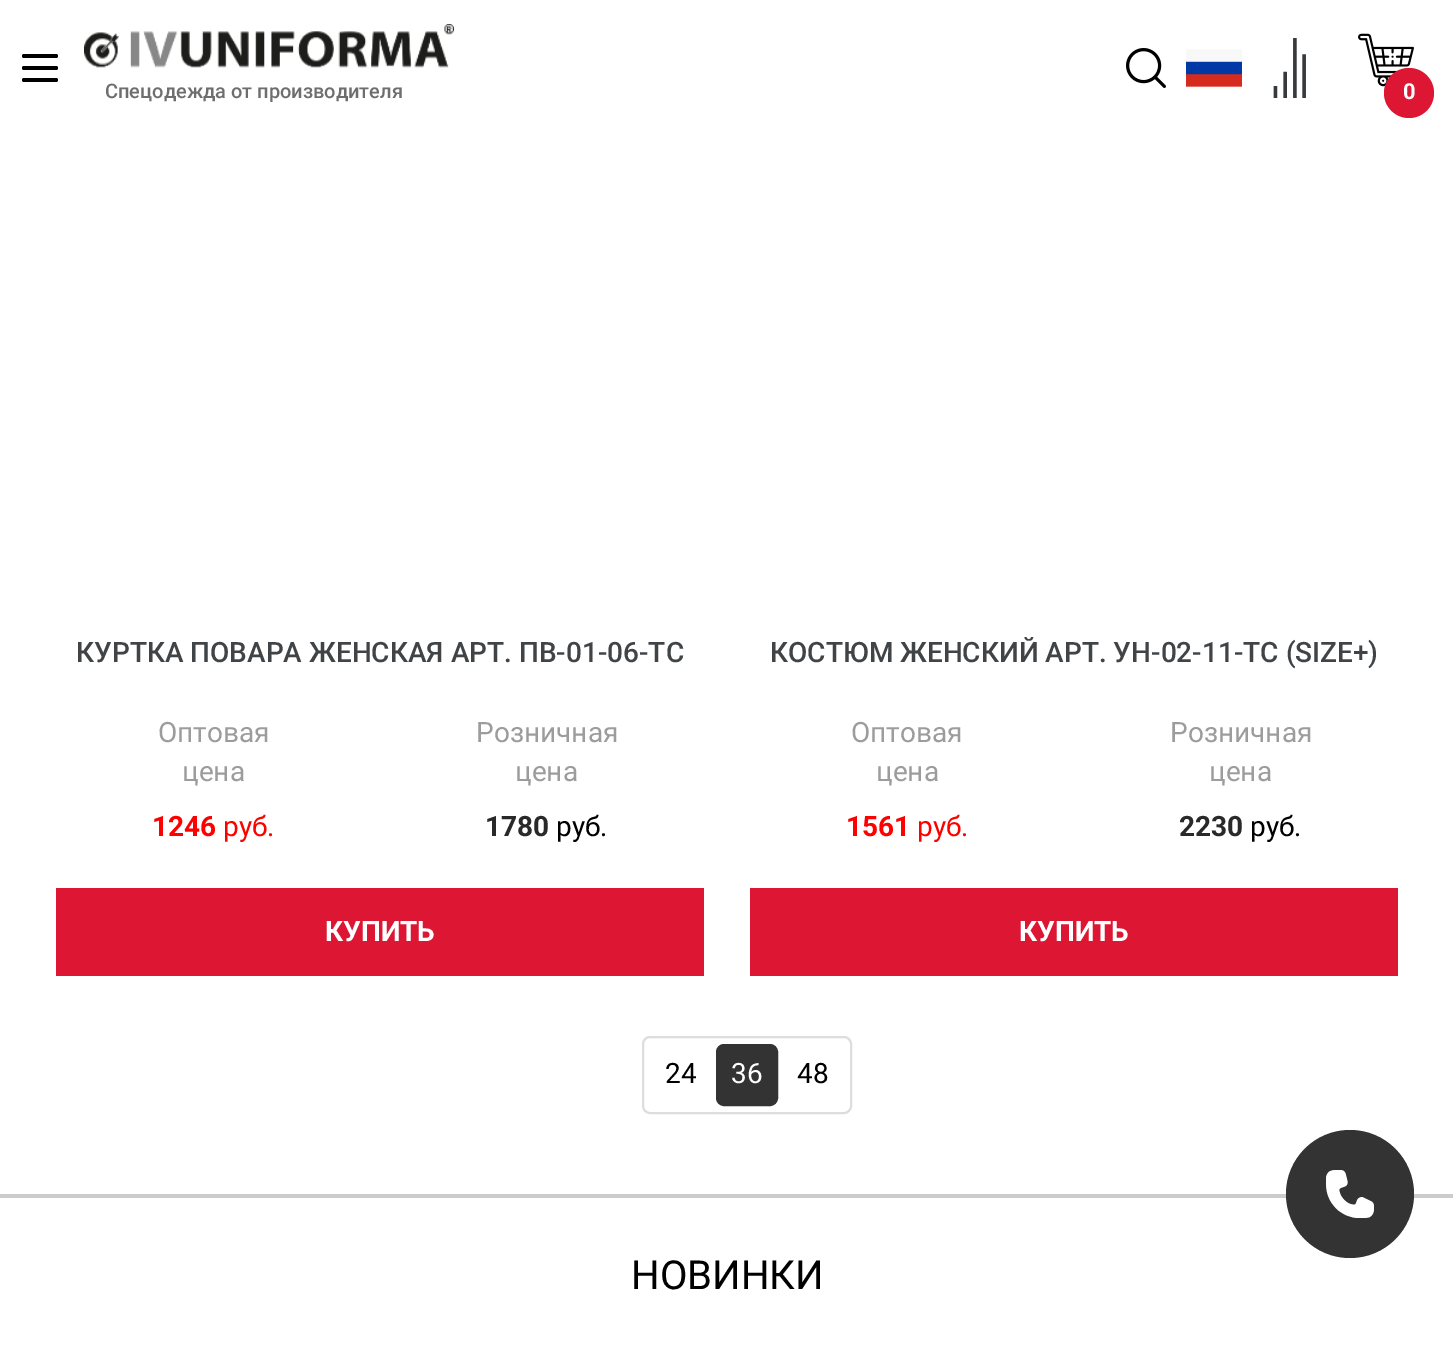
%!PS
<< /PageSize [1453 1358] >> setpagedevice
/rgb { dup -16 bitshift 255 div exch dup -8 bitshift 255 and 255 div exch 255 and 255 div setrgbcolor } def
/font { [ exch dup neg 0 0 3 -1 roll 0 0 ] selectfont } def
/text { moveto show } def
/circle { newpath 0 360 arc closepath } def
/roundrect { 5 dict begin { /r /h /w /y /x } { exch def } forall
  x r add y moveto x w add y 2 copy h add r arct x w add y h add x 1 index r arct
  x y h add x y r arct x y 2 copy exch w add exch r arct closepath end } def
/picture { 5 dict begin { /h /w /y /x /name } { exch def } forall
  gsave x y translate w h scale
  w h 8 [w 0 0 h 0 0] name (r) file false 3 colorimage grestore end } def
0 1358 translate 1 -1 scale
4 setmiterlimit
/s1 { /Roboto-Medium 20 font 16#6F6E6E rgb } def
/s2 { /Roboto-Bold 22 font 16#FFFFFF rgb } def
/s3 { /Roboto-Medium 28 font 16#404446 rgb } def
/s4 { /Roboto-Regular 28 font 16#9C9C9C rgb } def
/s5 { /Roboto-Bold 28 font 16#FF0000 rgb } def
/s6 { /Roboto-Regular 28 font 16#FF0000 rgb } def
/s7 { /Roboto-Bold 28 font 16#292929 rgb } def
/s8 { /Roboto-Regular 28 font 16#000000 rgb } def
/s9 { /Roboto-Bold 28 font 16#FFFFFF rgb } def
/s10 { /Roboto-Regular 28 font 16#FFFFFF rgb } def
/s11 { /Roboto-Regular 40 font 16#000000 rgb } def
16#FFFFFF rgb
0 0 1453 1358 rectfill
16#000000 rgb
22 54 36 4 2 roundrect fill
22 66 36 4 2 roundrect fill
22 78 36 4 2 roundrect fill
(pic1.raw) 1126 48 40 40 picture
(pic2.raw) 84 24 370 44 picture
s1
(Cпецодежда от производителя) 105 98 text
(pic3.raw) 1186 49 56 38 picture
(pic4.raw) 1273 38 33 60 picture
(pic5.raw) 1358 33 56 54 picture
16#DC1633 rgb
1409 93 25 circle fill
s2
(0) 1403 99 text
16#CCCCCC rgb
0 1194 1453 4 rectfill
16#333333 rgb
1350 1194 64 circle fill
(pic6.raw) 1326 1170 48 48 picture
s3
(КУРТКА ПОВАРА ЖЕНСКАЯ АРТ. ПВ-01-06-ТС) 76 662 text
s4
(Оптовая) 158 742 text
(цена) 182 781 text
s5
(1246) 152 836 text
s6
(руб.) 223 836 text
s4
(Розничная) 476 742 text
(цена) 515 781 text
s7
(1780) 485 836 text
s8
(руб.) 556 836 text
16#DC1633 rgb
56 888 648 88 rectfill
s9
(КУПИТЬ) 325 941 text
s3
(КОСТЮМ ЖЕНСКИЙ АРТ. УН-02-11-ТС \(SIZE+\)) 770 662 text
s4
(Оптовая) 851 742 text
(цена) 876 781 text
s5
(1561) 846 836 text
s6
(руб.) 917 836 text
s4
(Розничная) 1170 742 text
(цена) 1209 781 text
s7
(2230) 1179 836 text
s8
(руб.) 1250 836 text
16#DC1633 rgb
750 888 648 88 rectfill
s9
(КУПИТЬ) 1019 941 text
16#DDDDDD rgb
2 setlinewidth
643 1037 208 76 7 roundrect stroke
s8
(24) 665 1083 text
16#333333 rgb
717 1045 60 60 7 roundrect gsave fill grestore
stroke
s10
(36) 731 1083 text
s8
(48) 797 1083 text
s11
(НОВИНКИ) 631 1289 text
showpage
